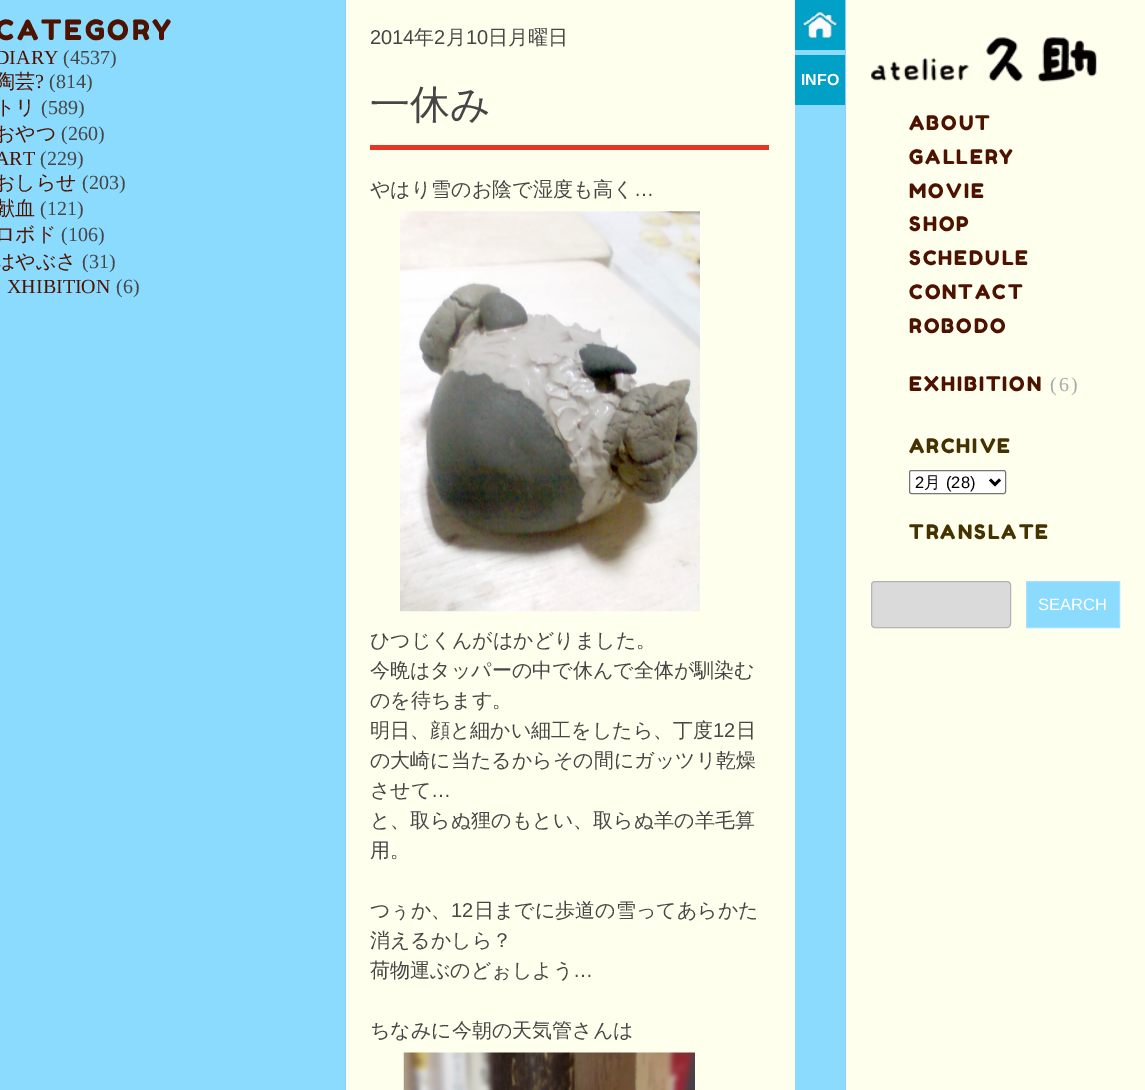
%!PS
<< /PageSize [1145 1090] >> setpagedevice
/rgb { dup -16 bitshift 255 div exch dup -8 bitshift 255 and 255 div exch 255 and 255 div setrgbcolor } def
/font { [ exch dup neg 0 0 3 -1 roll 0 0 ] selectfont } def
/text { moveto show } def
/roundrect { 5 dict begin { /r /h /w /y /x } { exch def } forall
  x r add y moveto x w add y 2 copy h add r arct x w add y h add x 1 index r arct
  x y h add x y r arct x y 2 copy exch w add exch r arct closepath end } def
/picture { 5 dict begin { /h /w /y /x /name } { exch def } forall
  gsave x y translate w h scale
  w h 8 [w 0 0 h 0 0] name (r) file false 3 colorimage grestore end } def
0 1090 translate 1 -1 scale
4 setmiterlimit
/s1 { /LiberationSerif-Regular 20 font 16#4E1200 rgb } def
/s2 { /LiberationSerif-Regular 20 font 16#464646 rgb } def
/s3 { /WenQuanYiZenHei-Medium 20 font 16#4E1200 rgb } def
/s4 { /LiberationSans-Regular 20 font 16#464646 rgb } def
/s5 { /WenQuanYiZenHei-Medium 20 font 16#464646 rgb } def
/s6 { /WenQuanYiZenHei-Medium 40 font 16#464646 rgb } def
/s7 { /LiberationSans-Bold 16 font 16#FFFFFF rgb } def
/s8 { /LiberationSans-Regular 16.5 font 16#000000 rgb } def
/s9 { /WenQuanYiZenHei-Medium 16.5 font 16#000000 rgb } def
/s10 { /LiberationSans-Regular 16.5 font 16#FFFFFF rgb } def
16#FFFFED rgb
0 0 1145 1090 rectfill
16#8BDBFF rgb
0 0 345 1090 rectfill
16#8DCFEC rgb
345 0 1 1090 rectfill
/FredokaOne-Regular 28 font
16#4E1200 rgb
-5 40 moveto 2.75 0 (CATEGORY) ashow
s1
(DIARY) -5 64 text
s2
(\(4537\)) 63 64 text
s3
(陶芸) -5 88 text
s1
(?) 35 88 text
s2
(\(814\)) 49 88 text
s3
(トリ) -5 114 text
s2
(\(589\)) 41 114 text
s3
(おやつ) -5 140 text
s2
(\(260\)) 61 140 text
s1
(ART) -5 165 text
s2
(\(229\)) 40 165 text
s3
(おしらせ) -5 189 text
s2
(\(203\)) 82 189 text
s3
(献血) -5 215 text
s2
(\(121\)) 40 215 text
s3
(ロボド) -5 241 text
s2
(\(106\)) 61 241 text
s3
(はやぶさ) -5 268 text
s2
(\(31\)) 82 268 text
s1
(XHIBITION) 7 293 text
s2
(\(6\)) 116 293 text
16#FFFFFF rgb
794 0 1 1090 rectfill
s4
(2014) 370 44 text
s5
(年) 414 44 text
s4
(2) 434 44 text
s5
(月) 446 44 text
s4
(10) 466 44 text
s5
(日月曜日) 488 44 text
16#E73525 rgb
370 145 399 5 rectfill
s6
(一休み) 370 118 text
s5
(やはり雪のお陰で湿度も高く) 370 196 text
s4
(…) 634 196 text
(pic1.raw) 400 211 300 401 picture
s5
(ひつじくんがはかどりました。) 370 647 text
(今晩はタッパーの中で休んで全体が馴染む) 370 677 text
(のを待ちます。) 370 707 text
(明日、顔と細かい細工をしたら、丁度) 370 737 text
s4
(12) 713 737 text
s5
(日) 736 737 text
(の大崎に当たるからその間にガッツリ乾燥) 370 767 text
(させて) 370 797 text
s4
(…) 431 797 text
s5
(と、取らぬ狸のもとい、取らぬ羊の羊毛算) 370 827 text
(用。) 370 857 text
(つぅか、) 370 917 text
s4
(12) 451 917 text
s5
(日までに歩道の雪ってあらかた) 474 917 text
(消えるかしら？) 370 947 text
(荷物運ぶのどぉしよう) 370 977 text
s4
(…) 573 977 text
s5
(ちなみに今朝の天気管さんは) 370 1037 text
(pic2.raw) 403 1052 292 38 picture
16#8BDBFF rgb
795 50 50 1040 rectfill
16#8DCFEC rgb
845 0 1 1090 rectfill
(pic3.raw) 795 0 50 50 picture
16#01A0C7 rgb
795 55 50 50 rectfill
s7
(INFO) 801 85 text
(pic4.raw) 871 37 226 45 picture
/FredokaOne-Regular 20 font
16#4E1200 rgb
909 130 moveto 2 0 (ABOUT) ashow
909 164 moveto 2 0 (GALLERY) ashow
909 198 moveto 2 0 (MOVIE) ashow
909 231 moveto 2 0 (SHOP) ashow
909 265 moveto 2 0 (SCHEDULE) ashow
909 299 moveto 2 0 (CONTACT) ashow
909 333 moveto 2 0 (ROBODO) ashow
909 391 moveto 2 0 (EXHIBITION) ashow
/LiberationSerif-Regular 20 font
16#AAAAAA rgb
1050 391 moveto 2 0 (\(6\)) ashow
/FredokaOne-Regular 20 font
16#463200 rgb
909 453 moveto 2 0 (ARCHIVE) ashow
16#FFFFFF rgb
909.5 470.5 96 23 2 roundrect gsave fill grestore
16#767676 rgb
stroke
16#000000 rgb
2.5 setlinewidth
990 479.5 moveto 995 484.5 lineto 1000 479.5 lineto stroke
s8
(2) 915 488 text
s9
(月) 924 488 text
s8
(\(28\)) 946 488 text
/FredokaOne-Regular 20 font
16#463200 rgb
909 539 moveto 2 0 (TRANSLATE) ashow
16#DADADA rgb
871.5 581.5 139 46 3.5 roundrect gsave fill grestore
16#B4B4B4 rgb
1 setlinewidth
stroke
16#8BDBFF rgb
1026.5 581.5 moveto 1119.5 581.5 lineto 1119.5 627.5 lineto 1026.5 627.5 lineto closepath gsave fill grestore
16#A2E2FF rgb
stroke
s10
(SEARCH) 1038 610 text
showpage
